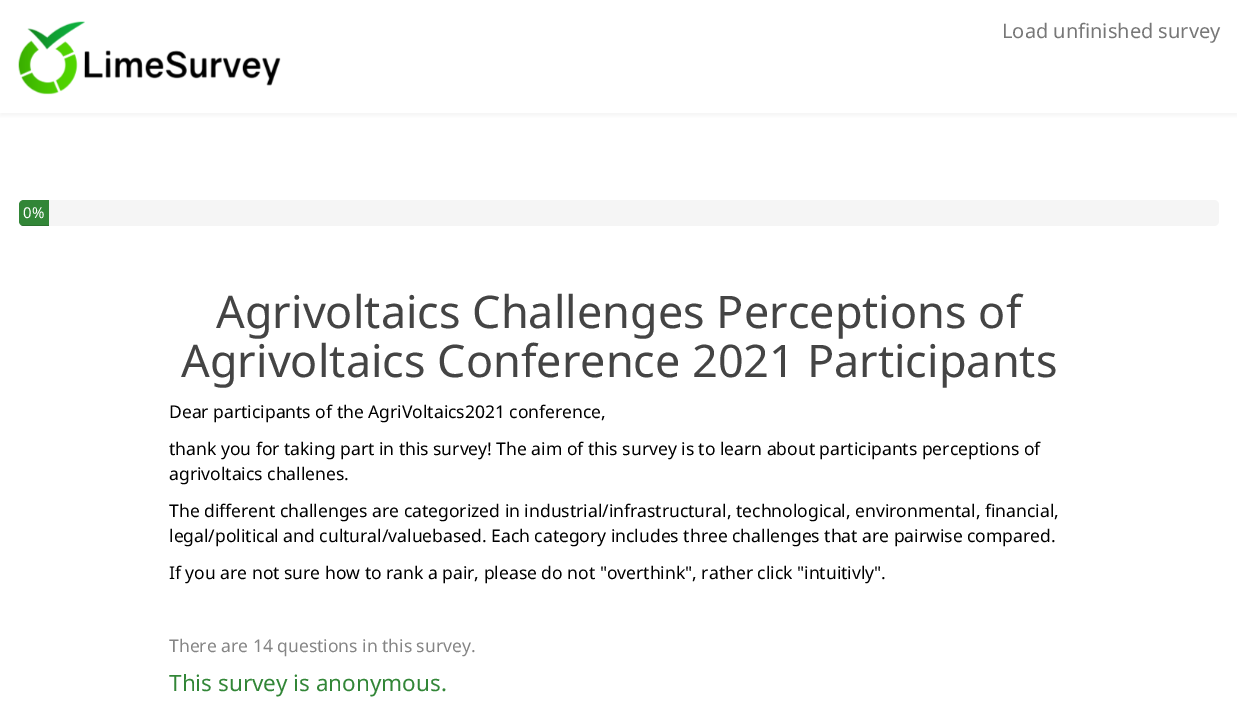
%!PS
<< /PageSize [1237 717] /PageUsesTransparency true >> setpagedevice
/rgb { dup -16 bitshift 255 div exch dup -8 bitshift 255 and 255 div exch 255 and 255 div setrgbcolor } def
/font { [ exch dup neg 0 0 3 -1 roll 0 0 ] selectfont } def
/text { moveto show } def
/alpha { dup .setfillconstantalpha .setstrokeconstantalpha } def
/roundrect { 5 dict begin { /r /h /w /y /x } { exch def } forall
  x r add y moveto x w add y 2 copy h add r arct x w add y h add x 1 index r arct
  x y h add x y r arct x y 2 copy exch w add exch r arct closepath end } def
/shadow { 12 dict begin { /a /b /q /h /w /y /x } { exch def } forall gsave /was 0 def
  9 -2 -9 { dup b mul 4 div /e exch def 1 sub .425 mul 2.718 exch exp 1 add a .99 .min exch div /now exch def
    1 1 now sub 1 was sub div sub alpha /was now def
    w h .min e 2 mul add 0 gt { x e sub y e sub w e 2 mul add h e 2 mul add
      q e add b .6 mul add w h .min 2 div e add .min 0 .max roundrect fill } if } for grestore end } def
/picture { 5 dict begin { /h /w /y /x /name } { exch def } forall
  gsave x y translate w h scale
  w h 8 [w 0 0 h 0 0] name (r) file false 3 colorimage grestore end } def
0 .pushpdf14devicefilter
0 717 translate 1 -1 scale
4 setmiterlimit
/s1 { /NotoSans-Regular 20 font 16#777777 rgb } def
/s2 { /NotoSans-Regular 15 font 16#FFFFFF rgb } def
/s3 { /NotoSans-Regular 45 font 16#444444 rgb } def
/s4 { /NotoSans-Regular 17.5 font 16#000000 rgb } def
/s5 { /NotoSans-Regular 17.5 font 16#858585 rgb } def
/s6 { /NotoSans-Regular 22.5 font 16#328637 rgb } def
16#FFFFFF rgb
0 0 1237 717 rectfill
16#84888A rgb
0 4 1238 112 0 2 0.1 shadow
16#FFFFFF rgb
0 2 1237 111 rectfill
(pic1.raw) 18 21 263 74 picture
s1
(Load unfinished survey) 1002 38 text
16#F5F5F5 rgb
19 200 1200 26 5 roundrect fill
16#328637 rgb
24 200 moveto 49 200 lineto 49 226 lineto 24 226 lineto 21 226 19 224 19 221 curveto 19 205 lineto 19 202 21 200 24 200 curveto closepath fill
gsave
19 200 1200 26 5 roundrect clip newpath
0.15 alpha
16#000000 rgb
19 225 30 1 rectfill
grestore
s2
(0%) 23 218 text
s3
(Agrivoltaics Challenges Perceptions of) 216 328 text
(Agrivoltaics Conference 2021 Participants) 181 377 text
s4
(Dear participants of the AgriVoltaics2021 conference,) 169 418 text
(thank you for taking part in this survey! The aim of this survey is to learn about participants perceptions of) 169 455 text
(agrivoltaics challenes.) 169 480 text
(The different challenges are categorized in industrial/infrastructural, technological, environmental, financial,) 169 517 text
(legal/political and cultural/valuebased. Each category includes three challenges that are pairwise compared.) 169 542 text
(If you are not sure how to rank a pair, please do not "overthink", rather click "intuitivly".) 169 579 text
s5
(There are 14 questions in this survey.) 169 652 text
s6
(This survey is anonymous.) 169 691 text
.poppdf14devicefilter showpage
